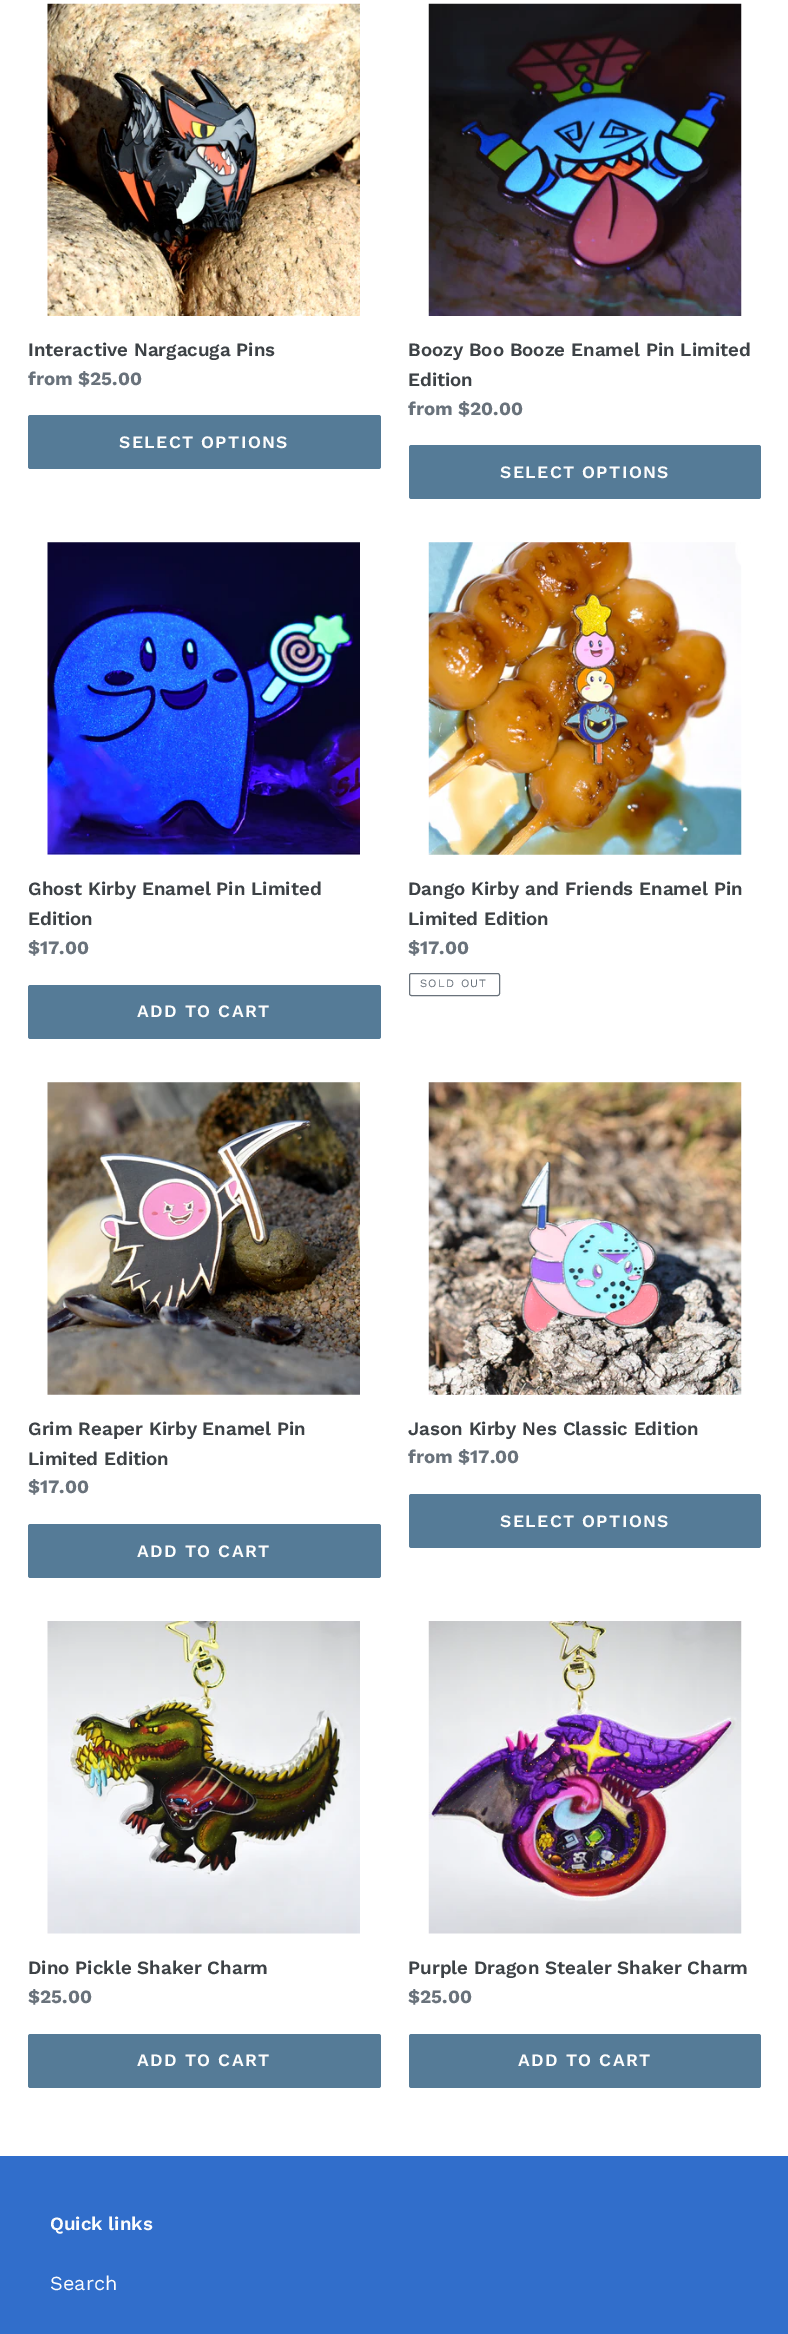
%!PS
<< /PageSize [788 2334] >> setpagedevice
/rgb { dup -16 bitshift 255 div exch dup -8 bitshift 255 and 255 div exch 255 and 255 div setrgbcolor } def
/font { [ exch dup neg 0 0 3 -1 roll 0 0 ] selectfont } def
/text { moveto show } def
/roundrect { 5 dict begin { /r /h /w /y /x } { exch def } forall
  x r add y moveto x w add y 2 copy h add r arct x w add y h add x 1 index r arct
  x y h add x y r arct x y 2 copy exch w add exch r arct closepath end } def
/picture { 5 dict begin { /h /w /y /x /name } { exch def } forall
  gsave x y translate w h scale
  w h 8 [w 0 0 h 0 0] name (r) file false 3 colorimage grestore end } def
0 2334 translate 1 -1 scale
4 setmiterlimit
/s1 { /WorkSans-SemiBold 18.75 font 16#3D4246 rgb } def
/s2 { /WorkSans-Bold 18.75 font 16#69727B rgb } def
/s3 { /WorkSans-SemiBold 18.75 font 16#FDFDFD rgb } def
/s4 { /WorkSans-Regular 20 font 16#FDFDFD rgb } def
16#FFFFFF rgb
0 0 788 2334 rectfill
(pic1.raw) 47 3 313 313 picture
s1
(Interactive Nargacuga Pins) 28 356 text
s2
(from $25.00) 28 385 text
16#557B97 rgb
28 415 353 54 2.5 roundrect fill
/WorkSans-SemiBold 17.5 font
16#FDFDFD rgb
119 448 moveto 1.4 0 (SELECT OPTIONS) ashow
(pic2.raw) 428 3 314 313 picture
s1
(Boozy Boo Booze Enamel Pin Limited) 408 356 text
(Edition) 408 386 text
s2
(from $20.00) 408 415 text
16#557B97 rgb
409 445 352 54 2.5 roundrect fill
/WorkSans-SemiBold 17.5 font
16#FDFDFD rgb
500 478 moveto 1.4 0 (SELECT OPTIONS) ashow
(pic3.raw) 47 542 313 313 picture
s1
(Ghost Kirby Enamel Pin Limited) 28 895 text
(Edition) 28 925 text
s2
($17.00) 28 954 text
16#557B97 rgb
28 985 353 54 2.5 roundrect fill
/WorkSans-SemiBold 17.5 font
16#FDFDFD rgb
137 1017 moveto 1.4 0 (ADD TO CART) ashow
(pic4.raw) 428 542 314 313 picture
s1
(Dango Kirby and Friends Enamel Pin) 408 895 text
(Limited Edition) 408 925 text
s2
($17.00) 408 954 text
409.5 973.5 90 22 2 roundrect stroke
/WorkSans-Regular 11.25 font
420 987 moveto 1.25 0 (SOLD OUT) ashow
(pic5.raw) 47 1082 313 313 picture
s1
(Grim Reaper Kirby Enamel Pin) 28 1435 text
(Limited Edition) 28 1465 text
s2
($17.00) 28 1493 text
16#557B97 rgb
28 1524 353 54 2.5 roundrect fill
/WorkSans-SemiBold 17.5 font
16#FDFDFD rgb
137 1557 moveto 1.4 0 (ADD TO CART) ashow
(pic6.raw) 428 1082 314 313 picture
s1
(Jason Kirby Nes Classic Edition) 408 1435 text
s2
(from $17.00) 408 1463 text
16#557B97 rgb
409 1494 352 54 2.5 roundrect fill
/WorkSans-SemiBold 17.5 font
16#FDFDFD rgb
500 1527 moveto 1.4 0 (SELECT OPTIONS) ashow
(pic7.raw) 47 1621 313 313 picture
s1
(Dino Pickle Shaker Charm) 28 1974 text
s2
($25.00) 28 2003 text
16#557B97 rgb
28 2034 353 54 2.5 roundrect fill
/WorkSans-SemiBold 17.5 font
16#FDFDFD rgb
137 2066 moveto 1.4 0 (ADD TO CART) ashow
(pic8.raw) 428 1621 314 313 picture
s1
(Purple Dragon Stealer Shaker Charm) 408 1974 text
s2
($25.00) 408 2003 text
16#557B97 rgb
409 2034 352 54 2.5 roundrect fill
/WorkSans-SemiBold 17.5 font
16#FDFDFD rgb
518 2066 moveto 1.4 0 (ADD TO CART) ashow
16#316ECB rgb
0 2156 788 178 rectfill
s3
(Quick links) 50 2230 text
s4
(Search) 50 2290 text
showpage
